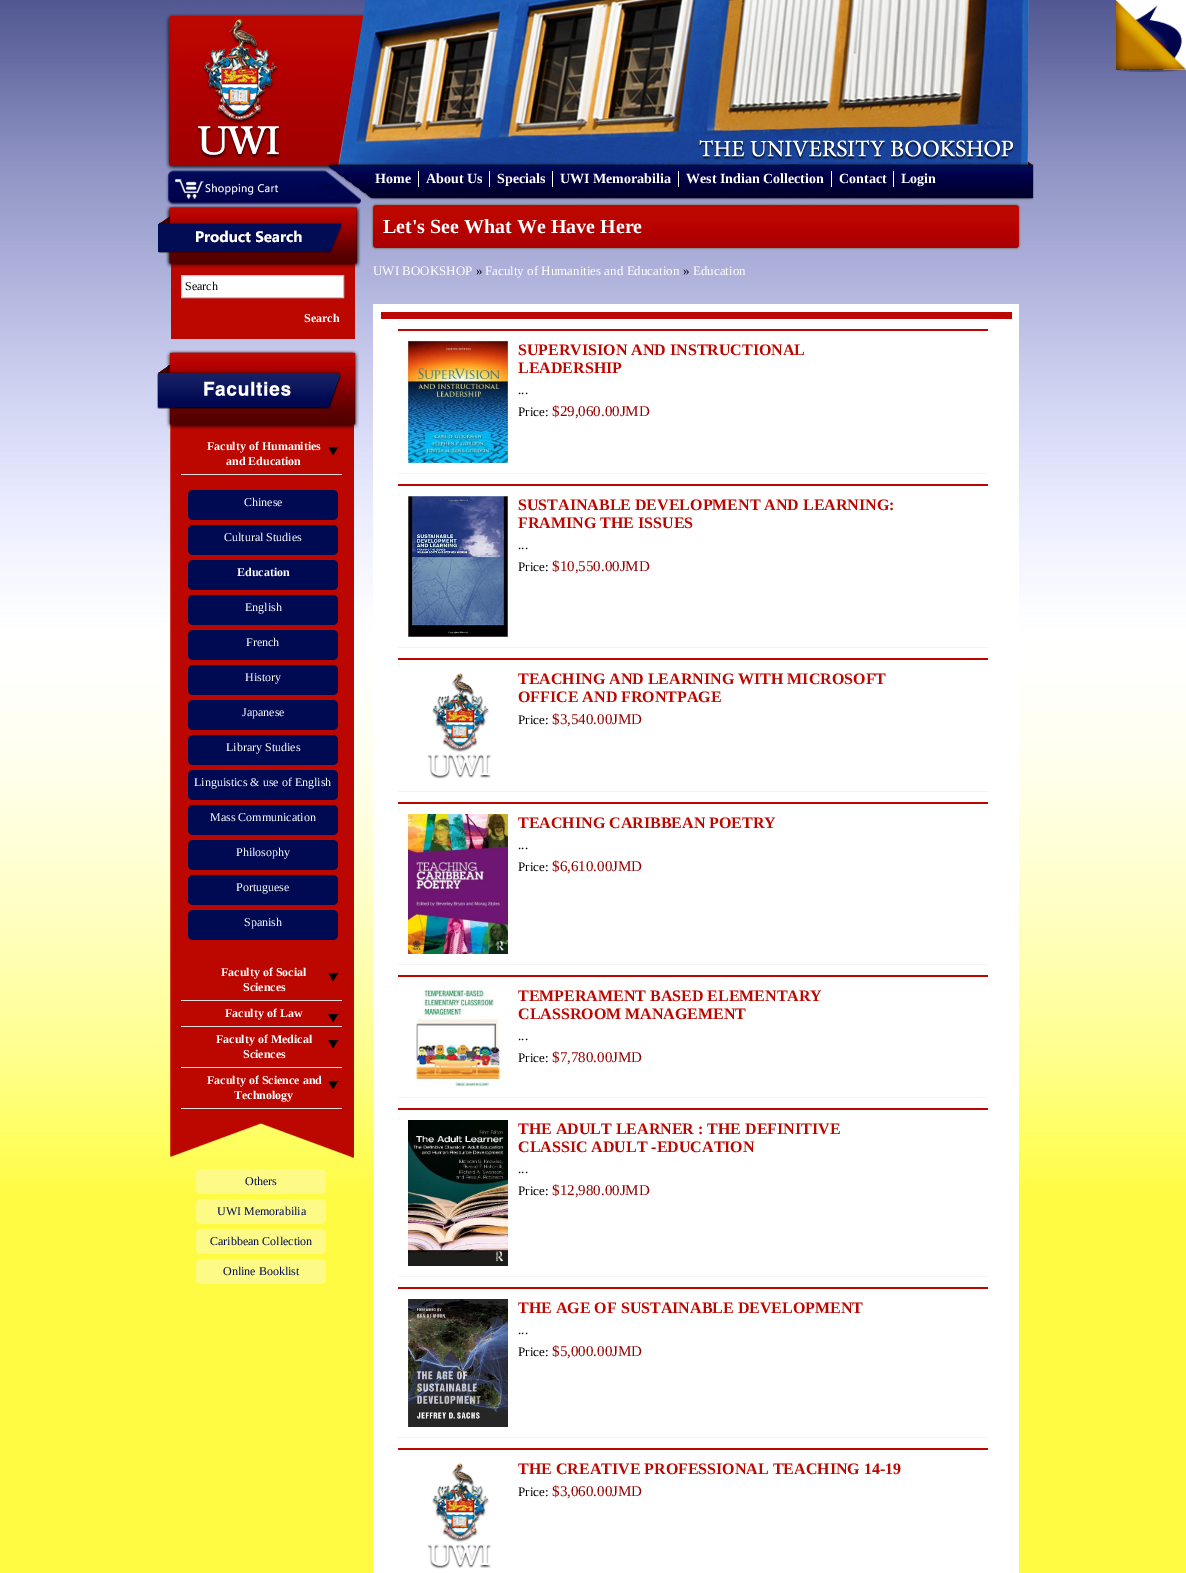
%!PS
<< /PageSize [1186 1573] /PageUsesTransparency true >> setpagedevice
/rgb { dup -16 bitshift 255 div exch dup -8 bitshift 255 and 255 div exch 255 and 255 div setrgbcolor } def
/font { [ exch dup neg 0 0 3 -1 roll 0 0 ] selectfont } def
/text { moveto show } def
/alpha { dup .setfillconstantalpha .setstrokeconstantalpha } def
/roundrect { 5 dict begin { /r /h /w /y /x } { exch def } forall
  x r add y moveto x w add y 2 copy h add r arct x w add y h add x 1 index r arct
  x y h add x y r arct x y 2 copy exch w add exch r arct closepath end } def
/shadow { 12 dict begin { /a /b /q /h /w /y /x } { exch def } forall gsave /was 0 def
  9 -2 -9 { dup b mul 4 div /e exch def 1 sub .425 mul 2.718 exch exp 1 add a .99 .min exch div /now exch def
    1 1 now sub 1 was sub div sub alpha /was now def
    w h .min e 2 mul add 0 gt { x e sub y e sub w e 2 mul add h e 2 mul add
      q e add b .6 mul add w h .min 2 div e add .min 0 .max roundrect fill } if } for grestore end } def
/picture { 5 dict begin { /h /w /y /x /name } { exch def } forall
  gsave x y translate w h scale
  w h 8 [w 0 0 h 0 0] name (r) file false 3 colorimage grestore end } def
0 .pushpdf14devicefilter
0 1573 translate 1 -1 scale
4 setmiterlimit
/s1 { /LiberationSerif-Bold 14 font 16#FFFFFF rgb } def
/s2 { /LiberationSerif-Regular 12 font 16#000000 rgb } def
/s3 { /LiberationSerif-Bold 12 font 16#FFFFFF rgb } def
/s4 { /LiberationSerif-Regular 12 font 16#FFFFFF rgb } def
/s5 { /LiberationSerif-Regular 12 font 16#000A53 rgb } def
/s6 { /LiberationSerif-Bold 20 font 16#FFFFFF rgb } def
/s7 { /LiberationSerif-Regular 13 font 16#FFFFFF rgb } def
/s8 { /LiberationSerif-Regular 13 font 16#000000 rgb } def
/s9 { /LiberationSerif-Bold 16 font 16#BC0700 rgb } def
/s10 { /LiberationSerif-Regular 15 font 16#940000 rgb } def
16#FFFFFF rgb
0 0 1186 1573 rectfill
(pic1.raw) 0 0 1186 1573 picture
1116 0 70 70 rectfill
(pic2.raw) 1116 5 66 65 picture
(pic3.raw) 1116 0 70 72 picture
(pic4.raw) 165 0 869 201 picture
(pic5.raw) 196 19 85 140 picture
(pic6.raw) 166 170 195 35 picture
(pic7.raw) 175 179 104 20 picture
s1
(Home) 375 183 text
418 171 1 16 rectfill
(About Us) 426 183 text
489 171 1 16 rectfill
(Specials) 497 183 text
552 171 1 16 rectfill
(UWI Memorabilia) 560 183 text
678 171 1 16 rectfill
(West Indian Collection) 686 183 text
831 171 1 16 rectfill
(Contact) 839 183 text
893 171 1 16 rectfill
(Login) 901 183 text
(pic8.raw) 158 205 203 65 picture
(pic9.raw) 158 205 203 65 picture
16#BC0700 rgb
171 270 184 69 rectfill
16#FFFFFF rgb
181.5 275.5 moveto 343.5 275.5 lineto 343.5 297.5 lineto 181.5 297.5 lineto closepath gsave fill grestore
16#BDC7D8 rgb
stroke
s2
(Search) 185 290 text
s3
(Search) 304 322 text
(pic10.raw) 157 350 202 79 picture
(pic11.raw) 170 429 184 690 picture
(pic12.raw) 328 447 11 8 picture
16#DDDDDD rgb
181 474 161 1 rectfill
s3
(Faculty of Humanities) 207 450 text
(and Education) 226 465 text
16#000A53 rgb
188 490 150 30 5 roundrect fill
s4
(Chinese) 244 506 text
16#000A53 rgb
188 525 150 30 5 roundrect fill
s4
(Cultural Studies) 224 541 text
16#000A53 rgb
188 560 150 30 5 roundrect fill
s3
(Education) 237 576 text
16#000A53 rgb
188 595 150 30 5 roundrect fill
s4
(English) 245 611 text
16#000A53 rgb
188 630 150 30 5 roundrect fill
s4
(French) 246 646 text
16#000A53 rgb
188 665 150 30 5 roundrect fill
s4
(History) 245 681 text
16#000A53 rgb
188 700 150 30 5 roundrect fill
s4
(Japanese) 242 716 text
16#000A53 rgb
188 735 150 30 5 roundrect fill
s4
(Library Studies) 226 751 text
16#000A53 rgb
188 770 150 30 5 roundrect fill
s4
(Linguistics & use of English) 194 786 text
16#000A53 rgb
188 805 150 30 5 roundrect fill
s4
(Mass Communication) 210 821 text
16#000A53 rgb
188 840 150 30 5 roundrect fill
s4
(Philosophy) 236 856 text
16#000A53 rgb
188 875 150 30 5 roundrect fill
s4
(Portuguese) 236 891 text
16#000A53 rgb
188 910 150 30 5 roundrect fill
s4
(Spanish) 244 926 text
(pic12.raw) 328 973 11 8 picture
16#DDDDDD rgb
181 1000 161 1 rectfill
s3
(Faculty of Social) 221 976 text
(Sciences) 243 991 text
(pic12.raw) 328 1014 11 8 picture
16#DDDDDD rgb
181 1026 161 1 rectfill
s3
(Faculty of Law) 225 1017 text
(pic12.raw) 328 1040 11 8 picture
16#DDDDDD rgb
181 1067 161 1 rectfill
s3
(Faculty of Medical) 216 1043 text
(Sciences) 243 1058 text
(pic12.raw) 328 1081 11 8 picture
16#DDDDDD rgb
181 1108 161 1 rectfill
s3
(Faculty of Science and) 207 1084 text
(Technology) 234 1099 text
(pic13.raw) 170 1119 184 39 picture
16#FDFA86 rgb
196 1169 130 25 5 roundrect fill
s5
(Others) 245 1185 text
16#FDFA86 rgb
196 1199 130 25 5 roundrect fill
s5
(UWI Memorabilia) 217 1215 text
16#FDFA86 rgb
196 1229 130 25 5 roundrect fill
s5
(Caribbean Collection) 210 1245 text
16#FDFA86 rgb
196 1259 130 25 5 roundrect fill
s5
(Online Booklist) 223 1275 text
gsave
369 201 moveto 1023 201 lineto 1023 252 lineto 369 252 lineto closepath 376 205 moveto 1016 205 lineto 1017.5 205 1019 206.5 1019 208 curveto 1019 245 lineto 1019 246.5 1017.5 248 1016 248 curveto 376 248 lineto 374.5 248 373 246.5 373 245 curveto 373 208 lineto 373 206.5 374.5 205 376 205 curveto closepath eoclip newpath
16#888888 rgb
372 204 648 45 4 0.5 1 shadow
grestore
(pic14.raw) 373 205 646 43 picture
s6
(Let's See What We Have Here) 383 233 text
s7
(UWI BOOKSHOP) 373 275 text
s8
(») 476 275 text
s7
(Faculty of Humanities and Education) 485 275 text
s8
(») 683 275 text
s7
(Education) 693 275 text
373 304 646 1269 rectfill
(pic15.raw) 381 312 632 8 picture
16#BC0700 rgb
398 329 590 2 rectfill
16#F4F4F4 rgb
398 473 590 1 rectfill
(pic16.raw) 408 341 100 122 picture
s9
(SUPERVISION AND INSTRUCTIONAL) 518 355 text
(LEADERSHIP) 518 373 text
s8
(...) 518 394 text
(Price:) 518 416 text
s10
($29,060.00JMD) 552 416 text
16#BC0700 rgb
398 484 590 2 rectfill
16#F4F4F4 rgb
398 647 590 1 rectfill
(pic17.raw) 408 496 100 141 picture
s9
(SUSTAINABLE DEVELOPMENT AND LEARNING:) 518 510 text
(FRAMING THE ISSUES) 518 528 text
s8
(...) 518 549 text
(Price:) 518 571 text
s10
($10,550.00JMD) 552 571 text
16#BC0700 rgb
398 658 590 2 rectfill
16#F4F4F4 rgb
398 791 590 1 rectfill
(pic18.raw) 427 673 64 106 picture
s9
(TEACHING AND LEARNING WITH MICROSOFT) 518 684 text
(OFFICE AND FRONTPAGE) 518 702 text
s8
(Price:) 518 724 text
s10
($3,540.00JMD) 552 724 text
16#BC0700 rgb
398 802 590 2 rectfill
16#F4F4F4 rgb
398 964 590 1 rectfill
(pic19.raw) 408 814 100 140 picture
s9
(TEACHING CARIBBEAN POETRY) 518 828 text
s8
(...) 518 849 text
(Price:) 518 871 text
s10
($6,610.00JMD) 552 871 text
16#BC0700 rgb
398 975 590 2 rectfill
16#F4F4F4 rgb
398 1097 590 1 rectfill
(pic20.raw) 415 987 89 100 picture
s9
(TEMPERAMENT BASED ELEMENTARY) 518 1001 text
(CLASSROOM MANAGEMENT) 518 1019 text
s8
(...) 518 1040 text
(Price:) 518 1062 text
s10
($7,780.00JMD) 552 1062 text
16#BC0700 rgb
398 1108 590 2 rectfill
16#F4F4F4 rgb
398 1276 590 1 rectfill
(pic21.raw) 408 1120 100 146 picture
s9
(THE ADULT LEARNER : THE DEFINITIVE) 518 1134 text
(CLASSIC ADULT -EDUCATION) 518 1152 text
s8
(...) 518 1173 text
(Price:) 518 1195 text
s10
($12,980.00JMD) 552 1195 text
16#BC0700 rgb
398 1287 590 2 rectfill
16#F4F4F4 rgb
398 1437 590 1 rectfill
(pic22.raw) 408 1299 100 128 picture
s9
(THE AGE OF SUSTAINABLE DEVELOPMENT) 518 1313 text
s8
(...) 518 1334 text
(Price:) 518 1356 text
s10
($5,000.00JMD) 552 1356 text
16#BC0700 rgb
398 1448 590 2 rectfill
(pic18.raw) 427 1463 64 106 picture
s9
(THE CREATIVE PROFESSIONAL TEACHING 14-19) 518 1474 text
s8
(Price:) 518 1496 text
s10
($3,060.00JMD) 552 1496 text
.poppdf14devicefilter showpage
